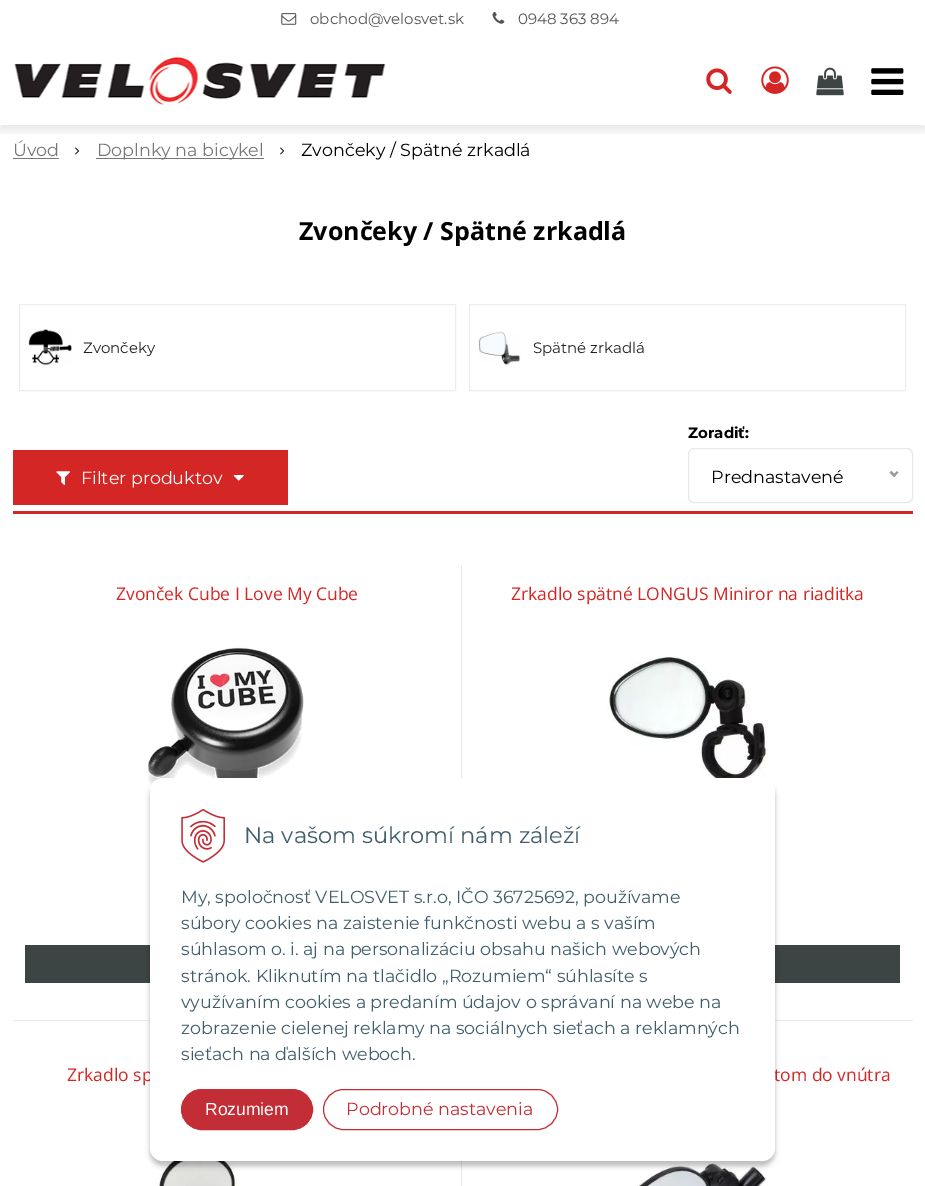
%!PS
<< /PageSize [925 1186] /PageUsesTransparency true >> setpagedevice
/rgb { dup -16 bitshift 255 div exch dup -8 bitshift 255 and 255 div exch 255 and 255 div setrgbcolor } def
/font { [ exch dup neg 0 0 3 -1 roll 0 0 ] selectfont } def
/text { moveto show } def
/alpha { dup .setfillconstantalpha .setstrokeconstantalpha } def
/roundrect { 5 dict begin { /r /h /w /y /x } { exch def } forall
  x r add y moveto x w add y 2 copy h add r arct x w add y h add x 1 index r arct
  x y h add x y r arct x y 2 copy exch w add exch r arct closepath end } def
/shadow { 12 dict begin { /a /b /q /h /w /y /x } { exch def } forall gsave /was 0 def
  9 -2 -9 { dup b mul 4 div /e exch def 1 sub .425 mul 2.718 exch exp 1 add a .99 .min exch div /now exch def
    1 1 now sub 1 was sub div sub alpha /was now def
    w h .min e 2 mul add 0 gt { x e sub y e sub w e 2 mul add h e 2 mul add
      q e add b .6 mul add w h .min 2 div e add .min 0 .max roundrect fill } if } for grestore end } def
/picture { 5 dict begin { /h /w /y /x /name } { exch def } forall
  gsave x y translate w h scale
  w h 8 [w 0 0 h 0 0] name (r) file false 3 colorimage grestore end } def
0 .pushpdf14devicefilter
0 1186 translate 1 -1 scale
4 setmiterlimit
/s1 { /Montserrat-Regular 15 font 16#555555 rgb } def
/s2 { /Montserrat-Regular 17.5 font 16#777777 rgb } def
/s3 { /Montserrat-Regular 17.5 font 16#000000 rgb } def
/s4 { /OpenSans-Bold 25 font 16#000000 rgb } def
/s5 { /Montserrat-Regular 15 font 16#222222 rgb } def
/s6 { /Montserrat-Regular 17.5 font 16#FFFFFF rgb } def
/s7 { /Montserrat-Bold 15 font 16#000000 rgb } def
/s8 { /OpenSans-Regular 17.5 font 16#D52626 rgb } def
/s9 { /Montserrat-Regular 22.5 font 16#3F5E6C rgb } def
/s10 { /Montserrat-Regular 17.5 font 16#3F5E6C rgb } def
/s11 { /LiberationSans-Regular 17.5 font 16#FFFFFF rgb } def
/s12 { /Montserrat-Regular 17.5 font 16#C32D36 rgb } def
16#FFFFFF rgb
0 0 925 1186 rectfill
gsave
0 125 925 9 rectclip
16#000000 rgb
0 5 925 125 0 5 0.1 shadow
grestore
(pic1.raw) 281 13 16 12 picture
s1
(obchod@velosvet.sk) 310 24 text
(pic2.raw) 492 12 13 12 picture
(0948 363 894) 518 24 text
(pic3.raw) 14 57 372 48 picture
(pic4.raw) 706 68 26 26 picture
(pic5.raw) 761 66 28 28 picture
(pic6.raw) 816 67 28 29 picture
(pic7.raw) 871 68 33 27 picture
s2
(Úvod) 13 156 text
13 158 46 1 rectfill
(pic8.raw) 75 147 5 8 picture
96 158 168 1 rectfill
(Doplnky na bicykel) 97 156 text
(pic8.raw) 280 147 5 8 picture
s3
(Zvončeky / Spätné zrkadlá) 301 156 text
s4
(Zvončeky / Spätné zrkadlá) 299 240 text
16#EDEDED rgb
19.5 304.5 436 86 rectstroke
(pic9.raw) 28 329 44 37 picture
s5
(Zvončeky) 83 353 text
16#EDEDED rgb
469.5 304.5 436 86 rectstroke
(pic10.raw) 478 331 43 34 picture
s5
(Spätné zrkadlá) 533 353 text
16#D52626 rgb
13 511 900 3 rectfill
13 450 275 55 rectfill
(pic11.raw) 56 471 14 14 picture
s6
(Filter produktov) 81 484 text
(pic12.raw) 233 475 11 6 picture
s7
(Zoradiť:) 688 438 text
16#E8E8E8 rgb
688.5 448.5 224 54 5.5 roundrect stroke
s3
(Prednastavené) 711 483 text
16#999999 rgb
897 471 moveto 898.5 472.5 lineto 894 477 lineto 892.5 475.5 lineto closepath fill
891.5 471 moveto 896 475.5 lineto 894 477 lineto 889.5 472.5 lineto closepath fill
16#E9E9E9 rgb
461 565 1 213 rectfill
s8
(Zvonček Cube I Love My Cube) 116 600 text
(pic13.raw) 148 647 156 142 picture
16#3D4444 rgb
25 945 125 38 rectfill
s8
(Zrkadlo spätné LONGUS Miniror na riaditka) 511 600 text
(pic14.raw) 607 656 161 124 picture
16#3D4444 rgb
775 945 125 38 rectfill
16#E9E9E9 rgb
13 1020 137 1 rectfill
461 1161 1 25 rectfill
s8
(Zrkadlo sp) 67 1081 text
(pic15.raw) 156 1159 84 27 picture
16#E9E9E9 rgb
775 1020 138 1 rectfill
s8
(tom do vnútra) 774 1081 text
(pic16.raw) 639 1162 129 24 picture
16#000000 rgb
150 783 625 383 13 2.5 0.25 shadow
16#FFFFFF rgb
150 778 625 383 13 roundrect fill
(pic17.raw) 181 809 44 54 picture
s9
(Na vašom súkromí nám záleží) 244 843 text
s10
(My, spoločnosť VELOSVET s.r.o, IČO 36725692, používame) 181 903 text
(súbory cookies na zaistenie funkčnosti webu a s vaším) 181 929 text
(súhlasom o. i. aj na personalizáciu obsahu našich webových) 181 955 text
(stránok. Kliknutím na tlačidlo „Rozumiem“ súhlasíte s) 181 982 text
(využívaním cookies a predaním údajov o správaní na webe na) 181 1008 text
(zobrazenie cielenej reklamy na sociálnych sieťach a reklamných) 181 1034 text
(sieťach na ďalších weboch.) 181 1060 text
16#C32D36 rgb
181.5 1089.5 131 40 20 roundrect gsave fill grestore
stroke
s11
(Rozumiem) 205 1115 text
16#C32D36 rgb
323.5 1089.5 234 40 20 roundrect stroke
s12
(Podrobné nastavenia) 346 1115 text
.poppdf14devicefilter showpage
